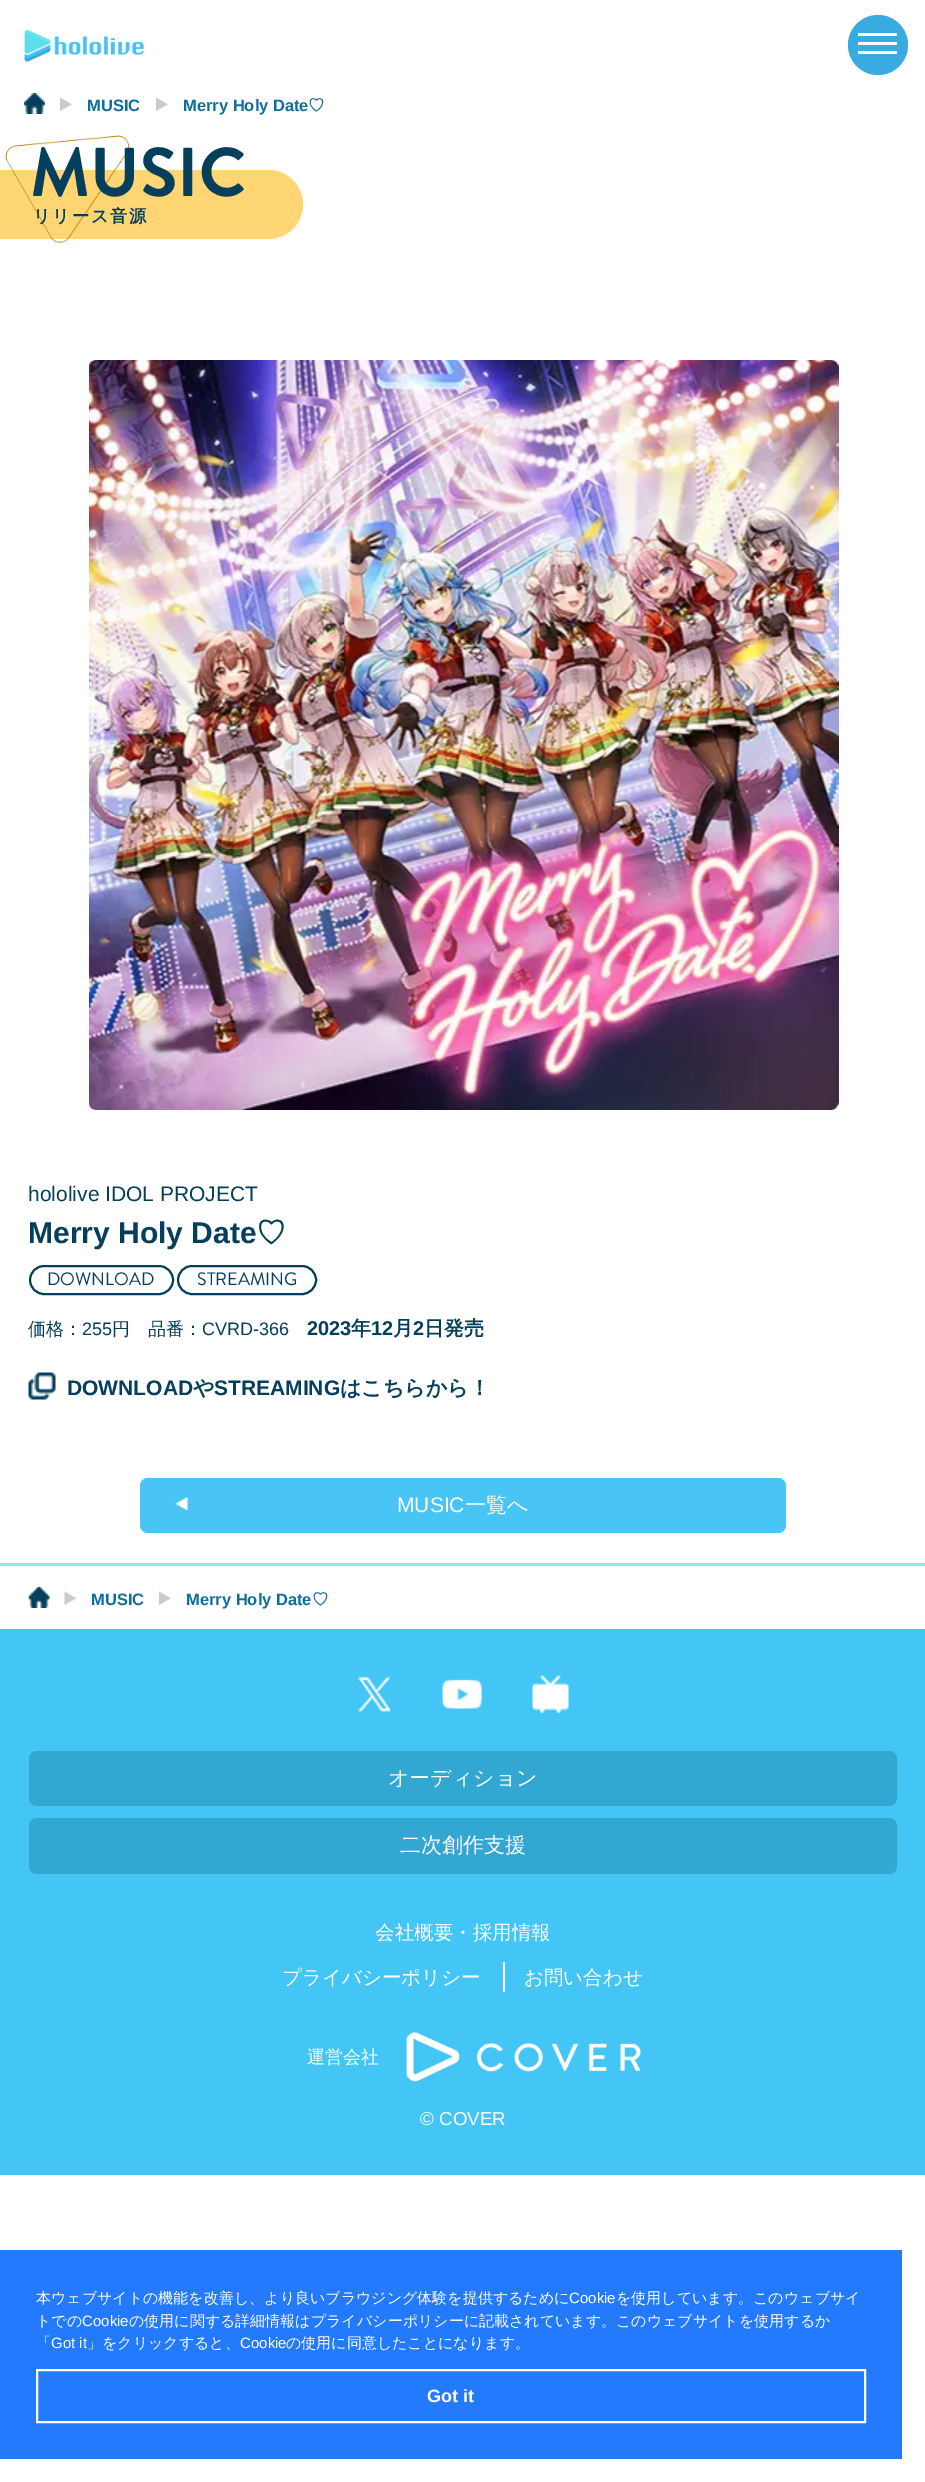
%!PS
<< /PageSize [925 2482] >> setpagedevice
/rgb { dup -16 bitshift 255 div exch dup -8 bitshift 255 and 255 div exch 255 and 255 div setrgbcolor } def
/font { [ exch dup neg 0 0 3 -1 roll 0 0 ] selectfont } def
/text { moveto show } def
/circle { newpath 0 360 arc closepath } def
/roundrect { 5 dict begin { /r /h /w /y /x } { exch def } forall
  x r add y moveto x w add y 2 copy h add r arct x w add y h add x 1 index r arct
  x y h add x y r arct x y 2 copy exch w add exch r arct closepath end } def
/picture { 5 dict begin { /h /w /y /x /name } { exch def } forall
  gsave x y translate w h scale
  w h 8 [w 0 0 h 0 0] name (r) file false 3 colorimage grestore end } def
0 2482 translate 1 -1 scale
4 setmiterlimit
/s1 { /LiberationSans-Bold 16.5 font 16#116E9A rgb } def
/s2 { /WenQuanYiZenHei-Bold 16.5 font 16#116E9A rgb } def
/s3 { /BrandonGrotesque-Bold 69 font 16#063F5C rgb } def
/s4 { /LiberationSans-Regular 21 font 16#063F5C rgb } def
/s5 { /LiberationSans-Bold 30 font 16#063F5C rgb } def
/s6 { /WenQuanYiZenHei-Bold 30 font 16#063F5C rgb } def
/s7 { /BrandonGrotesque-Regular 18 font 16#063F5C rgb } def
/s8 { /WenQuanYiZenHei-Medium 18 font 16#063F5C rgb } def
/s9 { /LiberationSans-Regular 18 font 16#063F5C rgb } def
/s10 { /LiberationSans-Bold 20 font 16#063F5C rgb } def
/s11 { /WenQuanYiZenHei-Bold 20 font 16#063F5C rgb } def
/s12 { /LiberationSans-Bold 21 font 16#063F5C rgb } def
/s13 { /WenQuanYiZenHei-Bold 21 font 16#063F5C rgb } def
/s14 { /LiberationSans-Regular 21 font 16#FFFFFF rgb } def
/s15 { /WenQuanYiZenHei-Medium 21 font 16#FFFFFF rgb } def
/s16 { /WenQuanYiZenHei-Medium 19.5 font 16#FFFFFF rgb } def
/s17 { /WenQuanYiZenHei-Medium 18 font 16#FFFFFF rgb } def
/s18 { /LiberationSans-Regular 18.75 font 16#FFFFFF rgb } def
/s19 { /WenQuanYiZenHei-Medium 15 font 16#FFFFFF rgb } def
/s20 { /LiberationSans-Regular 15 font 16#FFFFFF rgb } def
/s21 { /LiberationSans-Bold 18 font 16#FFFFFF rgb } def
16#FFFFFF rgb
0 0 925 2482 rectfill
(pic1.raw) 24 30 120 32 picture
16#39ABE0 rgb
878 45 30 circle fill
16#FFFFFF rgb
858 42 39 3 rectfill
858 33 39 3 rectfill
858 51 39 3 rectfill
(pic2.raw) 24 93 21 21 picture
(pic3.raw) 60 97 12 14 picture
s1
(MUSIC) 87 111 text
(pic3.raw) 156 97 12 14 picture
(Merry Holy Date) 183 111 text
s2
(♡) 308 111 text
16#FFD673 rgb
0 170 moveto 268.5 170 lineto 287.5 170 303 185.5 303 204.5 curveto 303 223.5 287.5 239 268.5 239 curveto 0 239 lineto closepath fill
(pic4.raw) 5 135 125 109 picture
s3
(MUSIC) 30 196 text
/WenQuanYiZenHei-Bold 17.25 font
33 222 moveto 1.75 0 (リリース音源) ashow
(pic5.raw) 89 360 750 750 picture
s4
(hololive IDOL PROJECT) 28 1201 text
s5
(Merry Holy Date) 28 1243 text
s6
(♡) 256 1243 text
2 setlinewidth
30 1266 143 28 14 roundrect stroke
s7
(DOWNLOAD) 47 1285 text
178 1266 138 28 14 roundrect stroke
(STREAMING) 197 1285 text
s8
(価格：) 28 1335 text
s9
(255) 82 1335 text
s8
(円　品番：) 112 1335 text
s9
(CVRD-366) 202 1335 text
s10
(2023) 307 1335 text
s11
(年) 351 1335 text
s10
(12) 371 1335 text
s11
(月) 393 1335 text
s10
(2) 413 1335 text
s11
(日発売) 424 1335 text
(pic6.raw) 28 1372 28 28 picture
s12
(DOWNLOAD) 67 1395 text
s13
(や) 193 1395 text
s12
(STREAMING) 214 1395 text
s13
(はこちらから！) 340 1395 text
16#48C5F4 rgb
140 1478 646 55 8 roundrect fill
(pic7.raw) 175 1497 13 14 picture
s14
(MUSIC) 397 1512 text
s15
(一覧へ) 465 1512 text
16#90E1FF rgb
0 1563 925 3 rectfill
(pic8.raw) 28 1587 22 21 picture
(pic9.raw) 64 1591 13 14 picture
s1
(MUSIC) 91 1605 text
(pic3.raw) 159 1591 12 14 picture
(Merry Holy Date) 186 1605 text
s2
(♡) 312 1605 text
16#43C5F5 rgb
0 1629 925 546 rectfill
(pic10.raw) 358 1676 33 36 picture
(pic11.raw) 442 1679 40 30 picture
(pic12.raw) 532 1675 37 39 picture
16#31A7D2 rgb
29 1751 868 55 8 roundrect fill
s15
(オーディション) 388 1785 text
16#31A7D2 rgb
29 1818 868 56 8 roundrect fill
s15
(二次創作支援) 400 1852 text
s16
(会社概要・採用情報) 375 1939 text
503 1962 2 30 rectfill
(プライバシーポリシー) 282 1984 text
(お問い合わせ) 524 1984 text
s17
(運営会社) 307 2063 text
(pic13.raw) 406 2032 235 50 picture
s18
(© COVER) 420 2125 text
16#237AFC rgb
0 2250 902 209 rectfill
s19
(本ウェブサイトの機能を改善し、より良いブラウジング体験を提供するために) 36 2303 text
s20
(Cookie) 569 2303 text
s19
(を使用しています。このウェブサイ) 616 2303 text
(トでの) 36 2326 text
s20
(Cookie) 82 2326 text
s19
(の使用に関する詳細情報はプライバシーポリシーに記載されています。このウェブサイトを使用するか) 129 2326 text
(「) 36 2348 text
s20
(Got it) 51 2348 text
s19
(」をクリックすると、) 87 2348 text
s20
(Cookie) 240 2348 text
s19
(の使用に同意したことになります。) 286 2348 text
37 2370 828 52 rectstroke
s21
(Got it) 427 2402 text
showpage
